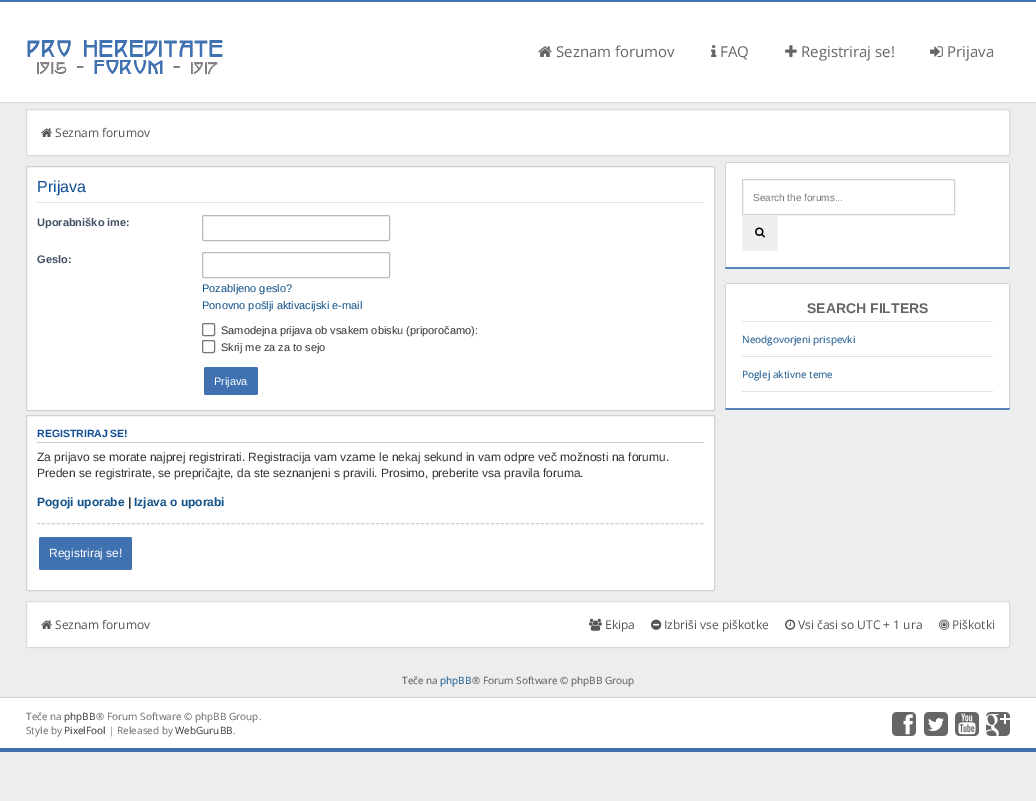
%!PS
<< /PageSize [1036 801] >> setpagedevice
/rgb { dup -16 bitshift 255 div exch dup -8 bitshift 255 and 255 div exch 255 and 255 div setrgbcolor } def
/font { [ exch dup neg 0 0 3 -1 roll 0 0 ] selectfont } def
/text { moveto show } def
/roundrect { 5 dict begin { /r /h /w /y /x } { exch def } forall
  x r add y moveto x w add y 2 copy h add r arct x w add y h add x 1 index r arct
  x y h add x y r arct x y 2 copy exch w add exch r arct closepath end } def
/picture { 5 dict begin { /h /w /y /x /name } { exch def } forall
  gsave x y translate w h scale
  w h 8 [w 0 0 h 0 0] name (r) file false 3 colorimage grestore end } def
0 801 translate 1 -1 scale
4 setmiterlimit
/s1 { /OpenSans-Regular 15 font 16#666666 rgb } def
/s2 { /OpenSans-Regular 12 font 16#555555 rgb } def
/s3 { /LiberationSans-Regular 16 font 16#115098 rgb } def
/s4 { /LiberationSans-Bold 11 font 16#425067 rgb } def
/s5 { /LiberationSans-Regular 11 font 16#105289 rgb } def
/s6 { /LiberationSans-Regular 11 font 16#333333 rgb } def
/s7 { /LiberationSans-Regular 11 font 16#FFFFFF rgb } def
/s8 { /LiberationSans-Bold 10.5 font 16#115098 rgb } def
/s9 { /LiberationSans-Regular 12 font 16#333333 rgb } def
/s10 { /LiberationSans-Bold 12 font 16#105289 rgb } def
/s11 { /LiberationSans-Bold 12 font 16#333333 rgb } def
/s12 { /LiberationSans-Regular 12 font 16#FFFFFF rgb } def
/s13 { /LiberationSans-Regular 10 font 16#757575 rgb } def
/s14 { /LiberationSans-Bold 14 font 16#666666 rgb } def
/s15 { /OpenSans-Regular 10 font 16#105289 rgb } def
/s16 { /OpenSans-Regular 10 font 16#555555 rgb } def
/s17 { /OpenSans-Regular 10 font 16#666666 rgb } def
/s18 { /OpenSans-Regular 10 font 16#333333 rgb } def
16#EDEDED rgb
0 0 1036 801 rectfill
16#FFFFFF rgb
0 2 1036 100 rectfill
16#4071B1 rgb
0 0 1036 2 rectfill
16#DADADA rgb
0 102 1036 1 rectfill
(pic1.raw) 27 40 196 35 picture
(pic2.raw) 538 46 14 11 picture
s1
(Seznam forumov) 556 57 text
(pic3.raw) 711 45 6 12 picture
(FAQ) 720 57 text
(pic4.raw) 785 45 12 12 picture
(Registriraj se!) 801 57 text
(pic5.raw) 930 46 13 11 picture
(Prijava) 947 57 text
16#FFFFFF rgb
26.5 109.5 983 46 1.5 roundrect gsave fill grestore
16#DADADA rgb
stroke
(pic6.raw) 41 128 11 9 picture
s2
(Seznam forumov) 55 137 text
16#FFFFFF rgb
26.5 166.5 688 244 1.5 roundrect gsave fill grestore
16#D1D1D1 rgb
stroke
16#E4E4E4 rgb
37 202 667 1 rectfill
s3
(Prijava) 37 192 text
s4
(Uporabniško ime:) 37 226 text
16#B4BAC0 rgb
202.5 215.5 187 25 1.5 roundrect stroke
s4
(Geslo:) 37 263 text
16#B4BAC0 rgb
202.5 252.5 187 25 1.5 roundrect stroke
s5
(Pozabljeno geslo?) 202 292 text
(Ponovno pošlji aktivacijski e-mail) 202 309 text
16#767676 rgb
202.5 323.5 12 12 1.5 roundrect stroke
s6
(Samodejna prijava ob vsakem obisku \(priporočamo\):) 221 334 text
16#767676 rgb
202.5 340.5 12 12 1.5 roundrect stroke
s6
(Skrij me za za to sejo) 221 351 text
16#4071B1 rgb
204 367 54 28 2 roundrect fill
s7
(Prijava) 214 385 text
26.5 415.5 688 175 1.5 roundrect gsave fill grestore
16#D1D1D1 rgb
stroke
16#CCCCCC rgb
37 442 667 1 rectfill
s8
(REGISTRIRAJ SE!) 37 437 text
s9
(Za prijavo se morate najprej registrirati. Registracija vam vzame le nekaj sekund in vam odpre več možnosti na forumu.) 37 461 text
(Preden se registrirate, se prepričajte, da ste seznanjeni s pravili. Prosimo, preberite vsa pravila foruma.) 37 477 text
s10
(Pogoji uporabe) 37 506 text
s11
(|) 128 506 text
s10
(Izjava o uporabi) 134 506 text
16#CCCCCC rgb
[3 1.99] 0 setdash
37 523.5 moveto 704 523.5 lineto stroke
16#4071B1 rgb
39 537 93 33 2 roundrect fill
s12
(Registriraj se!) 49 557 text
16#5580B8 rgb
725 265 moveto 725 267 725 269 727 269 curveto 1009 269 lineto 1010 268 1010 266 1010 265 curveto 1010 266 1009 267 1008 267 curveto 727 267 lineto 726 267 725 266 725 265 curveto closepath fill
16#FFFFFF rgb
725 162 285 105 2 roundrect fill
16#D1D1D1 rgb
726 162 283 1 rectfill
1009 163 1 103 rectfill
725 163 1 103 rectfill
[] 0 setdash
742.5 179.5 212 35 rectstroke
s13
(Search the forums...) 753 201 text
16#EFEFEF rgb
742 215 36 36 rectfill
(pic7.raw) 755 227 10 11 picture
16#5580B8 rgb
725 406 moveto 725 408 725 410 727 410 curveto 1009 410 lineto 1010 409 1010 407 1010 406 curveto 1010 407 1009 408 1008 408 curveto 727 408 lineto 726 408 725 407 725 406 curveto closepath fill
16#FFFFFF rgb
725 283 285 125 2 roundrect fill
16#D1D1D1 rgb
726 283 283 1 rectfill
1009 284 1 123 rectfill
725 284 1 123 rectfill
16#E2E2E2 rgb
742 321 251 1 rectfill
s14
(SEARCH FILTERS) 807 313 text
16#E2E2E2 rgb
742 356 251 1 rectfill
s15
(Neodgovorjeni prispevki) 742 343 text
16#E2E2E2 rgb
742 391 251 1 rectfill
s15
(Poglej aktivne teme) 742 378 text
16#FFFFFF rgb
26.5 601.5 983 46 1.5 roundrect gsave fill grestore
16#DADADA rgb
stroke
(pic6.raw) 41 620 11 9 picture
s2
(Seznam forumov) 55 629 text
(pic8.raw) 589 618 13 13 picture
(Ekipa) 605 629 text
(pic9.raw) 651 619 11 11 picture
(Izbriši vse piškotke) 664 629 text
(pic10.raw) 785 619 11 11 picture
(Vsi časi so UTC + 1 ura) 798 629 text
(pic11.raw) 939 619 11 11 picture
(Piškotki) 952 629 text
s16
(Teče na) 402 684 text
s15
(phpBB) 440 684 text
s16
(® Forum Software © phpBB Group) 472 684 text
16#FFFFFF rgb
0 698 1036 50 rectfill
16#D1D1D1 rgb
0 697 1036 1 rectfill
16#4071B1 rgb
0 748 1036 4 rectfill
s17
(Teče na) 26 720 text
s18
(phpBB) 64 720 text
s17
(® Forum Software © phpBB Group.) 96 720 text
(Style by) 26 734 text
s18
(PixelFool) 64 734 text
s17
(| Released by) 109 734 text
s18
(WebGuruBB) 175 734 text
s17
(.) 233 734 text
(pic12.raw) 892 712 24 24 picture
(pic13.raw) 924 712 24 24 picture
(pic14.raw) 955 712 24 24 picture
(pic15.raw) 986 712 24 24 picture
showpage
